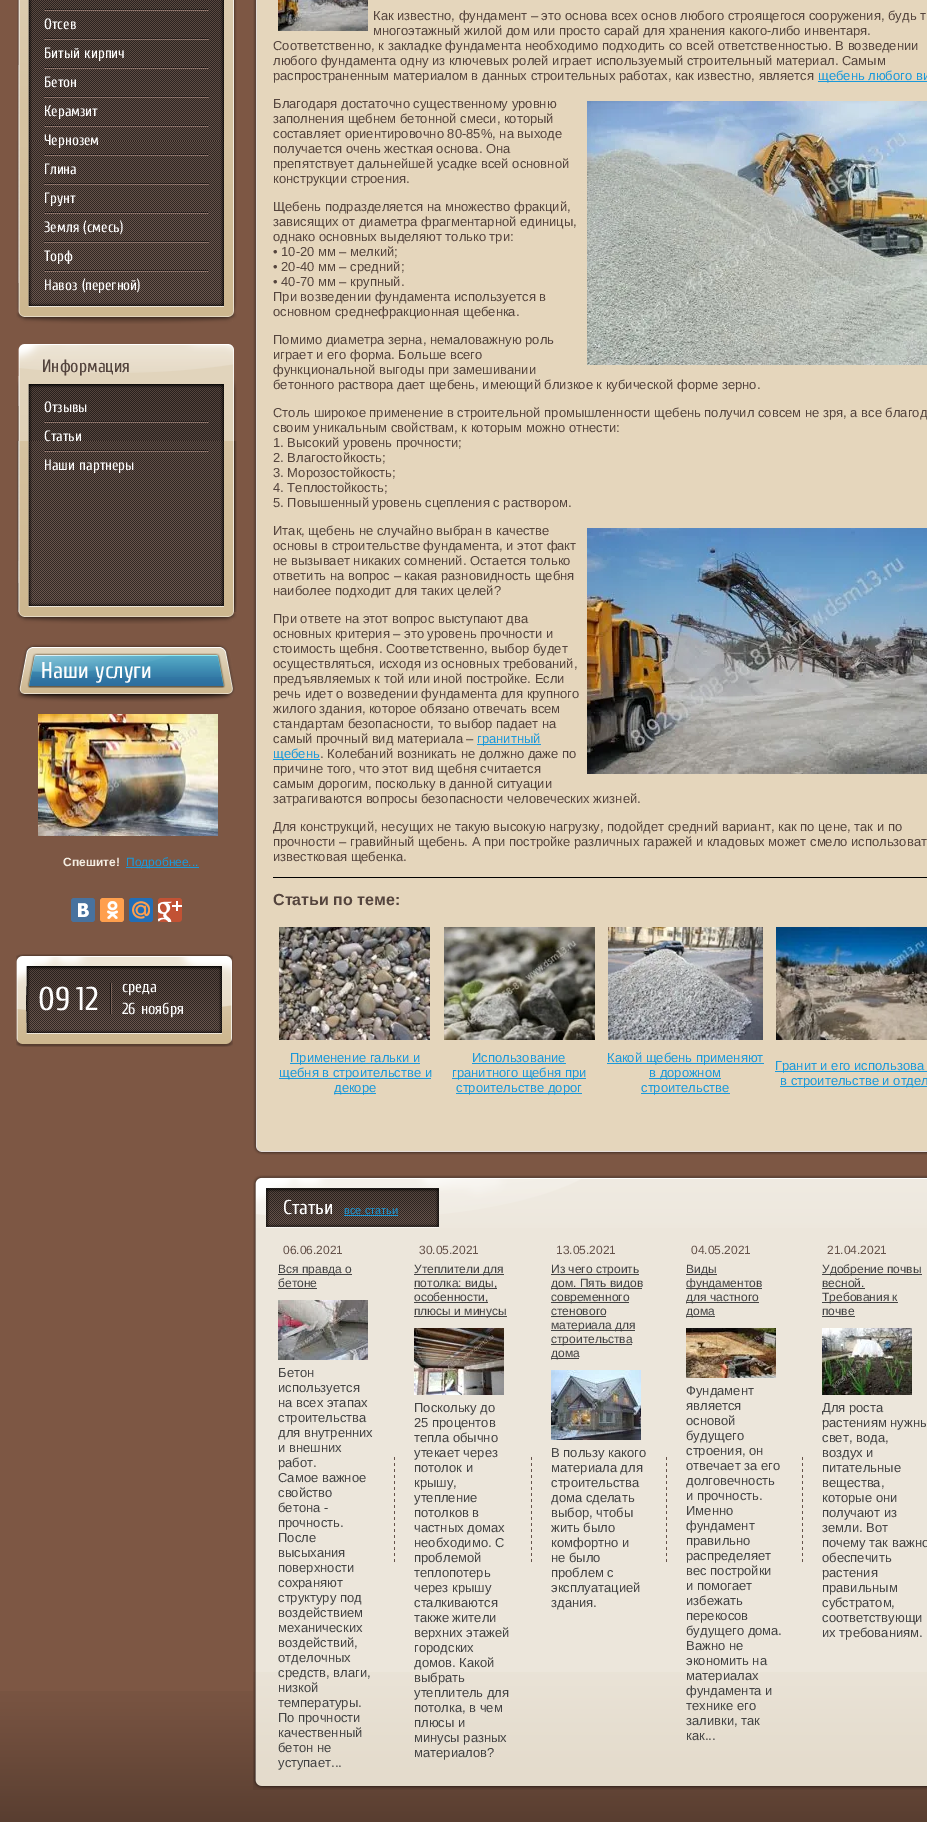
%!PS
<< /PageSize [927 1822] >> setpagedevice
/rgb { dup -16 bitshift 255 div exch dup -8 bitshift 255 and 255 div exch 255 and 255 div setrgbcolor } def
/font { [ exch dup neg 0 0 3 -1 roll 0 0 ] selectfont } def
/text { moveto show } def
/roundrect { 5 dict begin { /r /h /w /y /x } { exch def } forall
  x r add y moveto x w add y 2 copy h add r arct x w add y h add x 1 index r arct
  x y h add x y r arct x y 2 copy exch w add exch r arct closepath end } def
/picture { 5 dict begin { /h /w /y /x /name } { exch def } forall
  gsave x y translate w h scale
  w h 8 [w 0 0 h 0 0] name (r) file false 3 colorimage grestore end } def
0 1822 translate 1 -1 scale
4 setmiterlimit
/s1 { /Cuprum-Regular 15 font 16#FEFEFE rgb } def
/s2 { /Cuprum-Regular 18 font 16#54443D rgb } def
/s3 { /Cuprum-Regular 23 font 16#FEFEFE rgb } def
/s4 { /LiberationSans-Bold 12 font 16#F4EDE2 rgb } def
/s5 { /LiberationSans-Regular 12 font 16#1B99DA rgb } def
/s6 { /Cuprum-Regular 33 font 16#FEFEFE rgb } def
/s7 { /Cuprum-Regular 16 font 16#FEFEFE rgb } def
/s8 { /LiberationSans-Regular 13 font 16#54443D rgb } def
/s9 { /LiberationSans-Regular 13 font 16#1B99DA rgb } def
/s10 { /LiberationSans-Bold 16 font 16#54443D rgb } def
/s11 { /Cuprum-Regular 20 font 16#FEFEFE rgb } def
/s12 { /LiberationSans-Regular 11 font 16#1B99DA rgb } def
/s13 { /LiberationSans-Regular 12 font 16#65524A rgb } def
/s14 { /LiberationSans-Regular 12 font 16#434343 rgb } def
/s15 { /LiberationSans-Regular 13 font 16#434343 rgb } def
16#7D5744 rgb
0 0 927 1822 rectfill
(pic1.raw) 17 0 220 116 picture
(pic2.raw) 44 9 165 2 picture
s1
(Отсев) 44 29 text
(pic2.raw) 44 38 165 2 picture
(Битый кирпич) 44 58 text
(pic2.raw) 44 67 165 2 picture
(Бетон) 44 87 text
(pic2.raw) 44 96 165 2 picture
(pic3.raw) 17 116 220 25 picture
(Керамзит) 44 116 text
(pic2.raw) 44 125 165 2 picture
(pic4.raw) 16 141 221 183 picture
(Чернозем) 44 145 text
(pic2.raw) 44 154 165 2 picture
(Глина) 44 174 text
(pic2.raw) 44 183 165 2 picture
(Грунт) 44 203 text
(pic2.raw) 44 212 165 2 picture
(Земля \(смесь\)) 44 232 text
(pic2.raw) 44 241 165 2 picture
(Торф) 44 261 text
(pic2.raw) 44 270 165 2 picture
(Навоз \(перегной\)) 44 290 text
(pic5.raw) 17 344 220 268 picture
s2
(Информация) 42 372 text
s1
(Отзывы) 44 412 text
(pic2.raw) 44 421 165 2 picture
(pic6.raw) 16 441 221 183 picture
(Статьи) 44 441 text
(pic2.raw) 44 450 165 2 picture
(Наши партнеры) 44 470 text
(pic7.raw) 17 644 218 58 picture
s3
(Наши услуги) 41 678 text
(pic8.raw) 38 714 180 122 picture
s4
(Спешите!) 63 866 text
16#1B99DA rgb
126 867 73 1 rectfill
s5
(Подробнее...) 126 866 text
16#48729E rgb
71 898 24 24 3 roundrect fill
(pic9.raw) 78 903 11 14 picture
16#FF9F4D rgb
100 898 24 24 3 roundrect fill
(pic10.raw) 107 901 11 18 picture
16#226EB7 rgb
129 898 24 24 3 roundrect fill
(pic11.raw) 132 901 18 18 picture
16#C25234 rgb
158 898 24 24 3 roundrect fill
(pic12.raw) 158 901 24 21 picture
(pic13.raw) 16 954 217 93 picture
s6
(09) 38 1010 text
(12) 76 1010 text
s7
(среда) 122 992 text
(26 ноября) 122 1014 text
(pic14.raw) 253 0 674 1116 picture
(pic15.raw) 278 0 90 31 picture
s8
(Как известно, фундамент – это основа всех основ любого строящегося сооружения, будь т) 373 20 text
(многоэтажный жилой дом или просто сарай для хранения какого-либо инвентаря.) 373 35 text
(Соответственно, к закладке фундамента необходимо подходить со всей ответственностью. В возведении) 273 50 text
(любого фундамента одну из ключевых ролей играет используемый строительный материал. Самым) 273 65 text
(распространенным материалом в данных строительных работах, как известно, является) 273 80 text
16#1B99DA rgb
818 81 109 1 rectfill
(щебень любого ви) 818 80 text
s8
(Благодаря достаточно существенному уровню) 273 108 text
(pic16.raw) 587 101 340 264 picture
(заполнения щебнем бетонной смеси, который) 273 123 text
(составляет ориентировочно 80-85%, на выходе) 273 138 text
(получается очень жесткая основа. Она) 273 153 text
(препятствует дальнейшей усадке всей основной) 273 168 text
(конструкции строения.) 273 183 text
(Щебень подразделяется на множество фракций,) 273 211 text
(зависящих от диаметра фрагментарной единицы,) 273 226 text
(однако основных выделяют только три:) 273 241 text
(• 10-20 мм – мелкий;) 273 256 text
(• 20-40 мм – средний;) 273 271 text
(• 40-70 мм – крупный.) 273 286 text
(При возведении фундамента используется в) 273 301 text
(основном среднефракционная щебенка.) 273 316 text
(Помимо диаметра зерна, немаловажную роль) 273 344 text
(играет и его форма. Больше всего) 273 359 text
(функциональной выгоды при замешивании) 273 374 text
(бетонного раствора дает щебень, имеющий близкое к кубической форме зерно.) 273 389 text
(Столь широкое применение в строительной промышленности щебень получил совсем не зря, а все благод) 273 417 text
(своим уникальным свойствам, к которым можно отнести:) 273 432 text
(1. Высокий уровень прочности;) 273 447 text
(2. Влагостойкость;) 273 462 text
(3. Морозостойкость;) 273 477 text
(4. Теплостойкость;) 273 492 text
(5. Повышенный уровень сцепления с раствором.) 273 507 text
(Итак, щебень не случайно выбран в качестве) 273 535 text
(pic17.raw) 587 528 340 246 picture
(основы в строительстве фундамента, и этот факт) 273 550 text
(не вызывает никаких сомнений. Остается только) 273 565 text
(ответить на вопрос – какая разновидность щебня) 273 580 text
(наиболее подходит для таких целей?) 273 595 text
(При ответе на этот вопрос выступают два) 273 623 text
(основных критерия – это уровень прочности и) 273 638 text
(стоимость щебня. Соответственно, выбор будет) 273 653 text
(осуществляться, исходя из основных требований,) 273 668 text
(предъявляемых к той или иной постройке. Если) 273 683 text
(речь идет о возведении фундамента для крупного) 273 698 text
(жилого здания, которое обязано отвечать всем) 273 713 text
(стандартам безопасности, то выбор падает на) 273 728 text
(самый прочный вид материала –) 273 743 text
16#1B99DA rgb
477 744 64 1 rectfill
(гранитный) 477 743 text
273 759 47 1 rectfill
(щебень) 273 758 text
s8
(. Колебаний возникать не должно даже по) 320 758 text
(причине того, что этот вид щебня считается) 273 773 text
(самым дорогим, поскольку в данной ситуации) 273 788 text
(затрагиваются вопросы безопасности человеческих жизней.) 273 803 text
(Для конструкций, несущих не такую высокую нагрузку, подойдет средний вариант, как по цене, так и по) 273 831 text
(прочности – гравийный щебень. А при постройке различных гаражей и кладовых может смело использоват) 273 846 text
(известковая щебенка.) 273 861 text
16#000000 rgb
273 877 654 1 rectfill
s10
(Статьи по теме:) 273 905 text
(pic18.raw) 279 927 151 113 picture
(pic19.raw) 444 927 151 113 picture
(pic20.raw) 608 927 155 113 picture
(pic21.raw) 776 927 151 113 picture
16#1B99DA rgb
290 1063 130 1 rectfill
s9
(Применение гальки и) 290 1062 text
279 1078 152 1 rectfill
(щебня в строительстве и) 279 1077 text
334 1093 42 1 rectfill
(декоре) 334 1092 text
(Использование) 472 1062 text
472 1063 94 1 rectfill
452 1078 134 1 rectfill
(гранитного щебня при) 452 1077 text
456 1093 126 1 rectfill
(строительстве дорог) 456 1092 text
607 1063 157 1 rectfill
(Какой щебень применяют) 607 1062 text
649 1078 72 1 rectfill
(в дорожном) 649 1077 text
641 1093 89 1 rectfill
(строительстве) 641 1092 text
775 1071 152 1 rectfill
(Гранит и его использова) 775 1070 text
780 1086 147 1 rectfill
(в строительстве и отдел) 780 1085 text
(pic22.raw) 253 1116 674 39 picture
(pic23.raw) 253 1228 674 444 picture
(pic24.raw) 253 1175 674 53 picture
(pic32.raw) 0 1691 927 131 picture
(pic25.raw) 253 1672 674 118 picture
s11
(Статьи) 283 1214 text
s12
(все статьи) 344 1214 text
344 1215 54 1 rectfill
s13
(06.06.2021) 283 1254 text
16#434343 rgb
278 1274 74 1 rectfill
(Вся правда о) 278 1273 text
(бетоне) 278 1287 text
278 1288 39 1 rectfill
(pic26.raw) 278 1300 90 60 picture
s15
(Бетон) 278 1377 text
(используется) 278 1392 text
(на всех этапах) 278 1407 text
(строительства) 278 1422 text
(для внутренних) 278 1437 text
(и внешних) 278 1452 text
(работ.) 278 1467 text
(Самое важное) 278 1482 text
(свойство) 278 1497 text
(бетона -) 278 1512 text
(прочность.) 278 1527 text
(После) 278 1542 text
(высыхания) 278 1557 text
(поверхности) 278 1572 text
(сохраняют) 278 1587 text
(структуру под) 278 1602 text
(воздействием) 278 1617 text
(механических) 278 1632 text
(воздействий,) 278 1647 text
(отделочных) 278 1662 text
(средств, влаги,) 278 1677 text
(низкой) 278 1692 text
(температуры.) 278 1707 text
(По прочности) 278 1722 text
(качественный) 278 1737 text
(бетон не) 278 1752 text
(уступает...) 278 1767 text
(pic27.raw) 394 1457 1 105 picture
s13
(30.05.2021) 419 1254 text
16#434343 rgb
414 1274 90 1 rectfill
(Утеплители для) 414 1273 text
414 1288 83 1 rectfill
(потолка: виды,) 414 1287 text
414 1302 74 1 rectfill
(особенности,) 414 1301 text
414 1316 93 1 rectfill
(плюсы и минусы) 414 1315 text
(pic28.raw) 414 1328 90 67 picture
s15
(Поскольку до) 414 1412 text
(25 процентов) 414 1427 text
(тепла обычно) 414 1442 text
(утекает через) 414 1457 text
(потолок и) 414 1472 text
(крышу,) 414 1487 text
(утепление) 414 1502 text
(потолков в) 414 1517 text
(частных домах) 414 1532 text
(необходимо. С) 414 1547 text
(проблемой) 414 1562 text
(теплопотерь) 414 1577 text
(через крышу) 414 1592 text
(сталкиваются) 414 1607 text
(также жители) 414 1622 text
(верхних этажей) 414 1637 text
(городских) 414 1652 text
(домов. Какой) 414 1667 text
(выбрать) 414 1682 text
(утеплитель для) 414 1697 text
(потолка, в чем) 414 1712 text
(плюсы и) 414 1727 text
(минусы разных) 414 1742 text
(материалов?) 414 1757 text
(pic27.raw) 531 1457 1 105 picture
s13
(13.05.2021) 556 1254 text
16#434343 rgb
551 1274 88 1 rectfill
(Из чего строить) 551 1273 text
551 1288 91 1 rectfill
(дом. Пять видов) 551 1287 text
551 1302 78 1 rectfill
(современного) 551 1301 text
(стенового) 551 1315 text
551 1316 55 1 rectfill
551 1330 84 1 rectfill
(материала для) 551 1329 text
551 1344 81 1 rectfill
(строительства) 551 1343 text
551 1358 28 1 rectfill
(дома) 551 1357 text
(pic29.raw) 551 1370 90 70 picture
s15
(В пользу какого) 551 1457 text
(материала для) 551 1472 text
(строительства) 551 1487 text
(дома сделать) 551 1502 text
(выбор, чтобы) 551 1517 text
(жить было) 551 1532 text
(комфортно и) 551 1547 text
(не было) 551 1562 text
(проблем с) 551 1577 text
(эксплуатацией) 551 1592 text
(здания.) 551 1607 text
(pic27.raw) 666 1457 1 105 picture
s13
(04.05.2021) 691 1254 text
16#434343 rgb
686 1274 31 1 rectfill
(Виды) 686 1273 text
686 1288 76 1 rectfill
(фундаментов) 686 1287 text
686 1302 73 1 rectfill
(для частного) 686 1301 text
686 1316 29 1 rectfill
(дома) 686 1315 text
(pic30.raw) 686 1328 90 50 picture
s15
(Фундамент) 686 1395 text
(является) 686 1410 text
(основой) 686 1425 text
(будущего) 686 1440 text
(строения, он) 686 1455 text
(отвечает за его) 686 1470 text
(долговечность) 686 1485 text
(и прочность.) 686 1500 text
(Именно) 686 1515 text
(фундамент) 686 1530 text
(правильно) 686 1545 text
(распределяет) 686 1560 text
(вес постройки) 686 1575 text
(и помогает) 686 1590 text
(избежать) 686 1605 text
(перекосов) 686 1620 text
(будущего дома.) 686 1635 text
(Важно не) 686 1650 text
(экономить на) 686 1665 text
(материалах) 686 1680 text
(фундамента и) 686 1695 text
(технике его) 686 1710 text
(заливки, так) 686 1725 text
(как...) 686 1740 text
(pic27.raw) 802 1457 1 105 picture
s13
(21.04.2021) 827 1254 text
16#434343 rgb
822 1274 100 1 rectfill
(Удобрение почвы) 822 1273 text
(весной.) 822 1287 text
822 1288 43 1 rectfill
822 1302 76 1 rectfill
(Требования к) 822 1301 text
(почве) 822 1315 text
822 1316 33 1 rectfill
(pic31.raw) 822 1328 90 67 picture
s15
(Для роста) 822 1412 text
(растениям нужны) 822 1427 text
(свет, вода,) 822 1442 text
(воздух и) 822 1457 text
(питательные) 822 1472 text
(вещества,) 822 1487 text
(которые они) 822 1502 text
(получают из) 822 1517 text
(земли. Вот) 822 1532 text
(почему так важно) 822 1547 text
(обеспечить) 822 1562 text
(растения) 822 1577 text
(правильным) 822 1592 text
(субстратом,) 822 1607 text
(соответствующи) 822 1622 text
(их требованиям.) 822 1637 text
showpage
